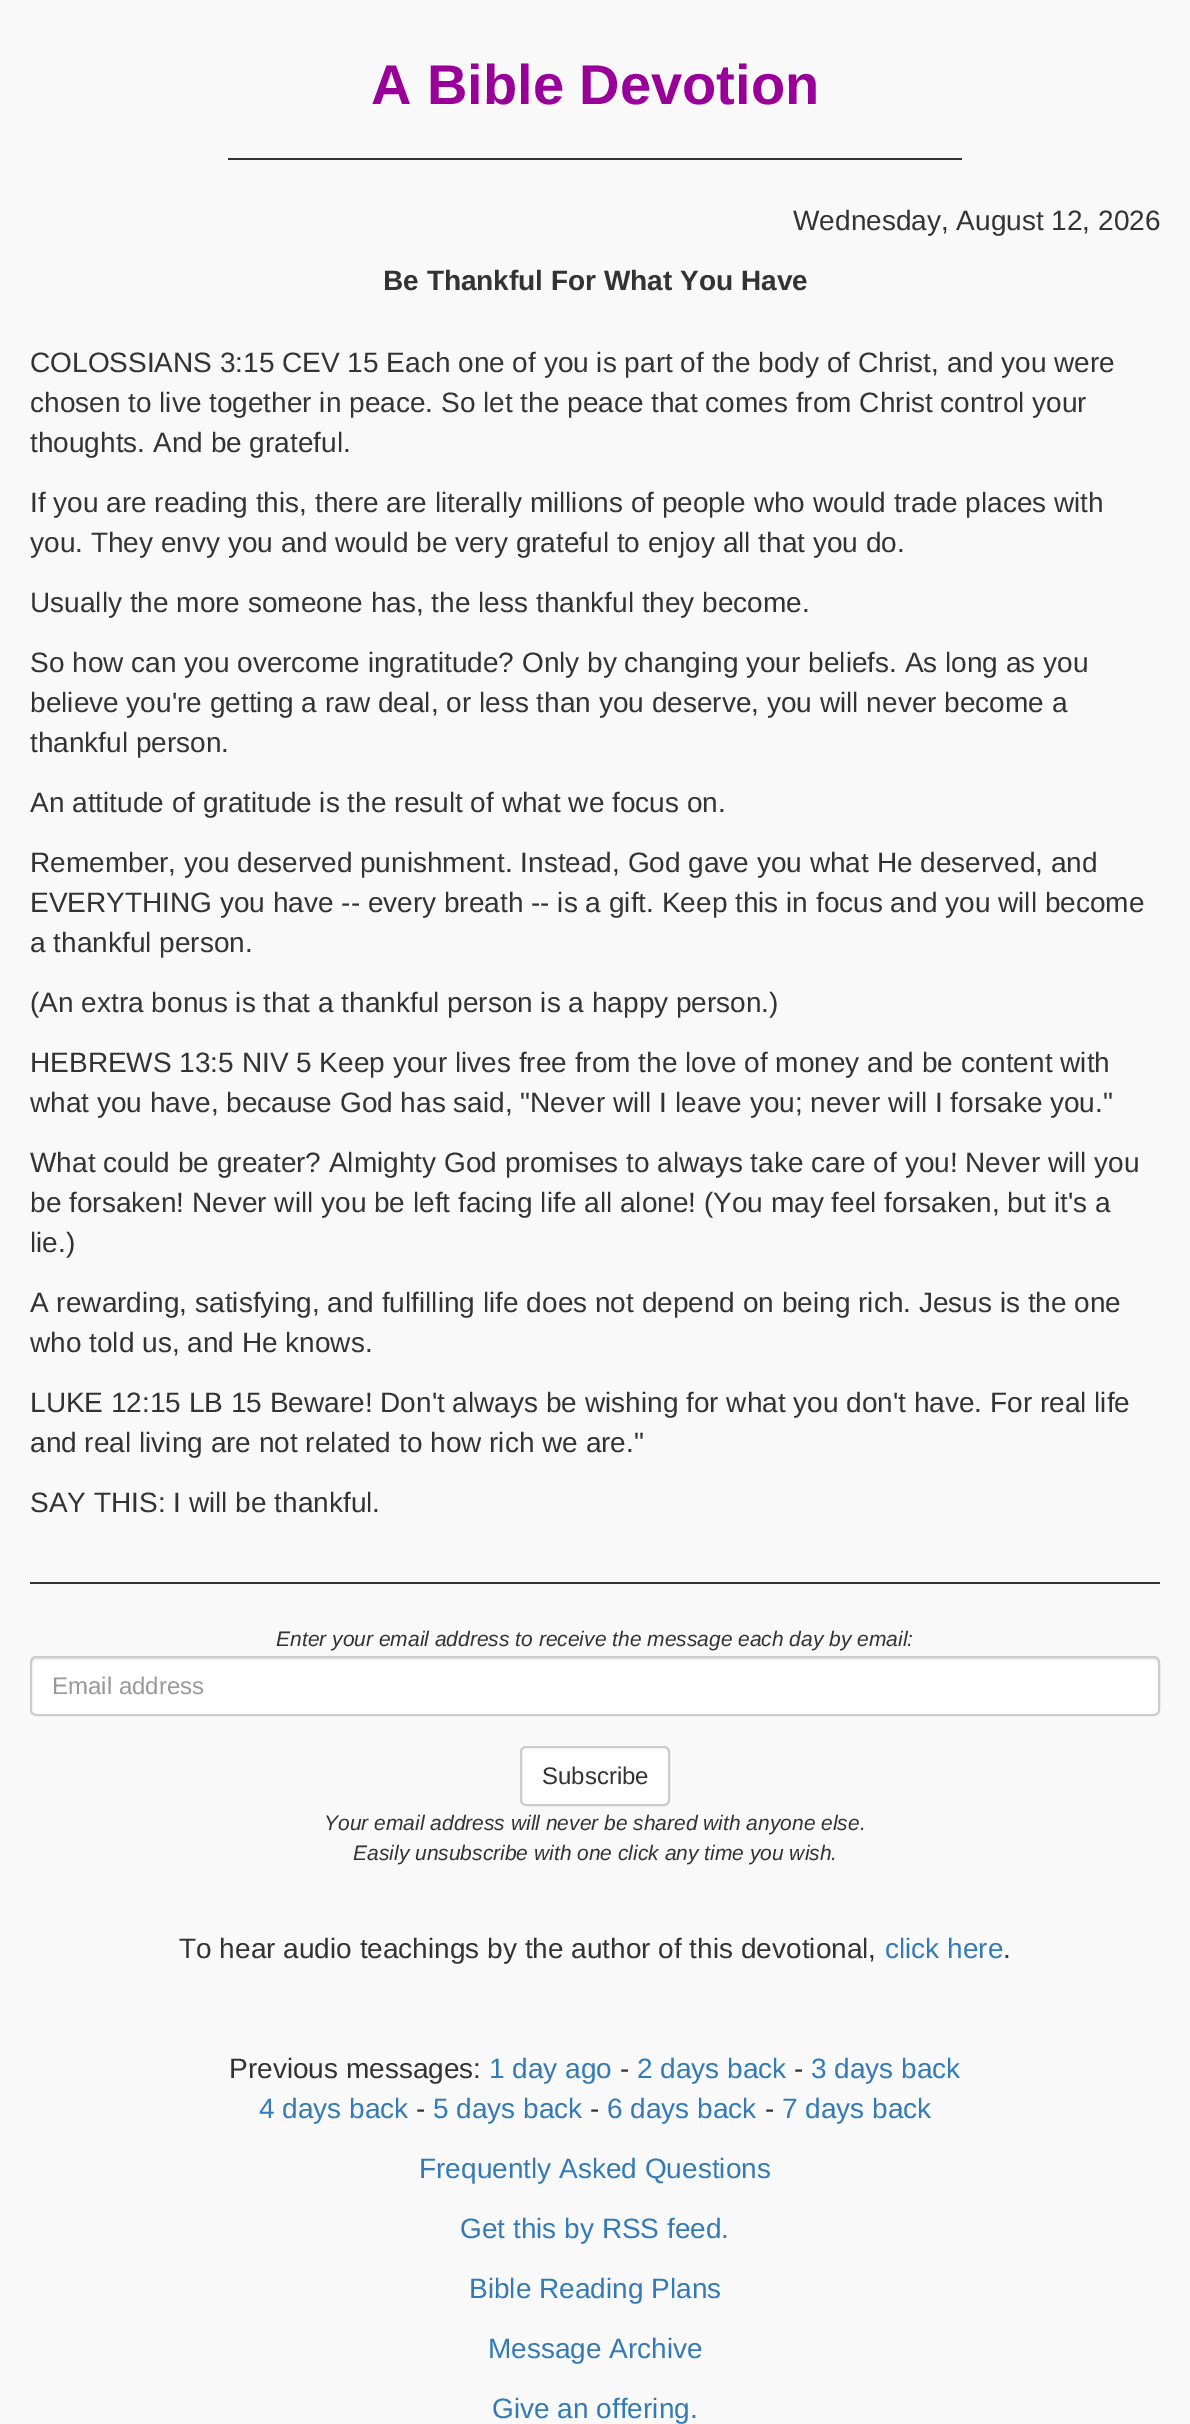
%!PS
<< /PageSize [1190 2424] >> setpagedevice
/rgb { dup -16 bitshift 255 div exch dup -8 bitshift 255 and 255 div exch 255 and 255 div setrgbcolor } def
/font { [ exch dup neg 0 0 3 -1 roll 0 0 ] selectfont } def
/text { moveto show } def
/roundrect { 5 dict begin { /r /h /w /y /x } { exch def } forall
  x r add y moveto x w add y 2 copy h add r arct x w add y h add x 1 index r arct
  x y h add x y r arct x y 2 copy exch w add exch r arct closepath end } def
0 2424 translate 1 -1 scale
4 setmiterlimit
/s1 { /LiberationSans-Bold 56 font 16#990099 rgb } def
/s2 { /LiberationSans-Regular 28 font 16#333333 rgb } def
/s3 { /LiberationSans-Bold 28 font 16#333333 rgb } def
/s4 { /LiberationSans-Italic 21 font 16#333333 rgb } def
/s5 { /LiberationSans-Regular 24 font 16#999999 rgb } def
/s6 { /LiberationSans-Regular 24 font 16#333333 rgb } def
/s7 { /LiberationSans-Regular 28 font 16#337AB7 rgb } def
16#F9F9F9 rgb
0 0 1190 2424 rectfill
s1
(A Bible Devotion) 371 104 text
16#333333 rgb
228 158 734 2 rectfill
s2
(Wednesday, August 12, 2026) 793 230 text
s3
(Be Thankful For What You Have) 383 290 text
s2
(COLOSSIANS 3:15 CEV 15 Each one of you is part of the body of Christ, and you were) 30 372 text
(chosen to live together in peace. So let the peace that comes from Christ control your) 30 412 text
(thoughts. And be grateful.) 30 452 text
(If you are reading this, there are literally millions of people who would trade places with) 30 512 text
(you. They envy you and would be very grateful to enjoy all that you do.) 30 552 text
(Usually the more someone has, the less thankful they become.) 30 612 text
(So how can you overcome ingratitude? Only by changing your beliefs. As long as you) 30 672 text
(believe you're getting a raw deal, or less than you deserve, you will never become a) 30 712 text
(thankful person.) 30 752 text
(An attitude of gratitude is the result of what we focus on.) 30 812 text
(Remember, you deserved punishment. Instead, God gave you what He deserved, and) 30 872 text
(EVERYTHING you have -- every breath -- is a gift. Keep this in focus and you will become) 30 912 text
(a thankful person.) 30 952 text
(\(An extra bonus is that a thankful person is a happy person.\)) 30 1012 text
(HEBREWS 13:5 NIV 5 Keep your lives free from the love of money and be content with) 30 1072 text
(what you have, because God has said, "Never will I leave you; never will I forsake you.") 30 1112 text
(What could be greater? Almighty God promises to always take care of you! Never will you) 30 1172 text
(be forsaken! Never will you be left facing life all alone! \(You may feel forsaken, but it's a) 30 1212 text
(lie.\)) 30 1252 text
(A rewarding, satisfying, and fulfilling life does not depend on being rich. Jesus is the one) 30 1312 text
(who told us, and He knows.) 30 1352 text
(LUKE 12:15 LB 15 Beware! Don't always be wishing for what you don't have. For real life) 30 1412 text
(and real living are not related to how rich we are.") 30 1452 text
(SAY THIS: I will be thankful.) 30 1512 text
30 1582 1130 2 rectfill
s4
(Enter your email address to receive the message each day by email:) 276 1646 text
16#FFFFFF rgb
30 1656 1130 60 6 roundrect fill
16#ECECEC rgb
36 1660 moveto 1154 1660 lineto 1156 1660 1158 1662 1158 1664 curveto 1158 1662 lineto 1158 1660 1156 1658 1154 1658 curveto 36 1658 lineto 34 1658 32 1660 32 1662 curveto 32 1664 lineto 32 1662 34 1660 36 1660 curveto closepath fill
16#CCCCCC rgb
2 setlinewidth
31 1657 1128 58 5 roundrect stroke
s5
(Email address) 52 1694 text
16#FFFFFF rgb
521 1747 148 58 5 roundrect gsave fill grestore
16#CCCCCC rgb
stroke
s6
(Subscribe) 542 1784 text
s4
(Your email address will never be shared with anyone else.) 324 1830 text
(Easily unsubscribe with one click any time you wish.) 353 1860 text
s2
(To hear audio teachings by the author of this devotional,) 179 1958 text
s7
(click here) 885 1958 text
s2
(.) 1003 1958 text
(Previous messages:) 229 2078 text
s7
(1 day ago) 489 2078 text
s2
(-) 620 2078 text
s7
(2 days back) 637 2078 text
s2
(-) 794 2078 text
s7
(3 days back) 811 2078 text
(4 days back) 259 2118 text
s2
(-) 416 2118 text
s7
(5 days back) 433 2118 text
s2
(-) 590 2118 text
s7
(6 days back) 607 2118 text
s2
(-) 765 2118 text
s7
(7 days back) 782 2118 text
(Frequently Asked Questions) 419 2178 text
(Get this by RSS feed.) 460 2238 text
(Bible Reading Plans) 469 2298 text
(Message Archive) 488 2358 text
(Give an offering.) 492 2418 text
showpage
